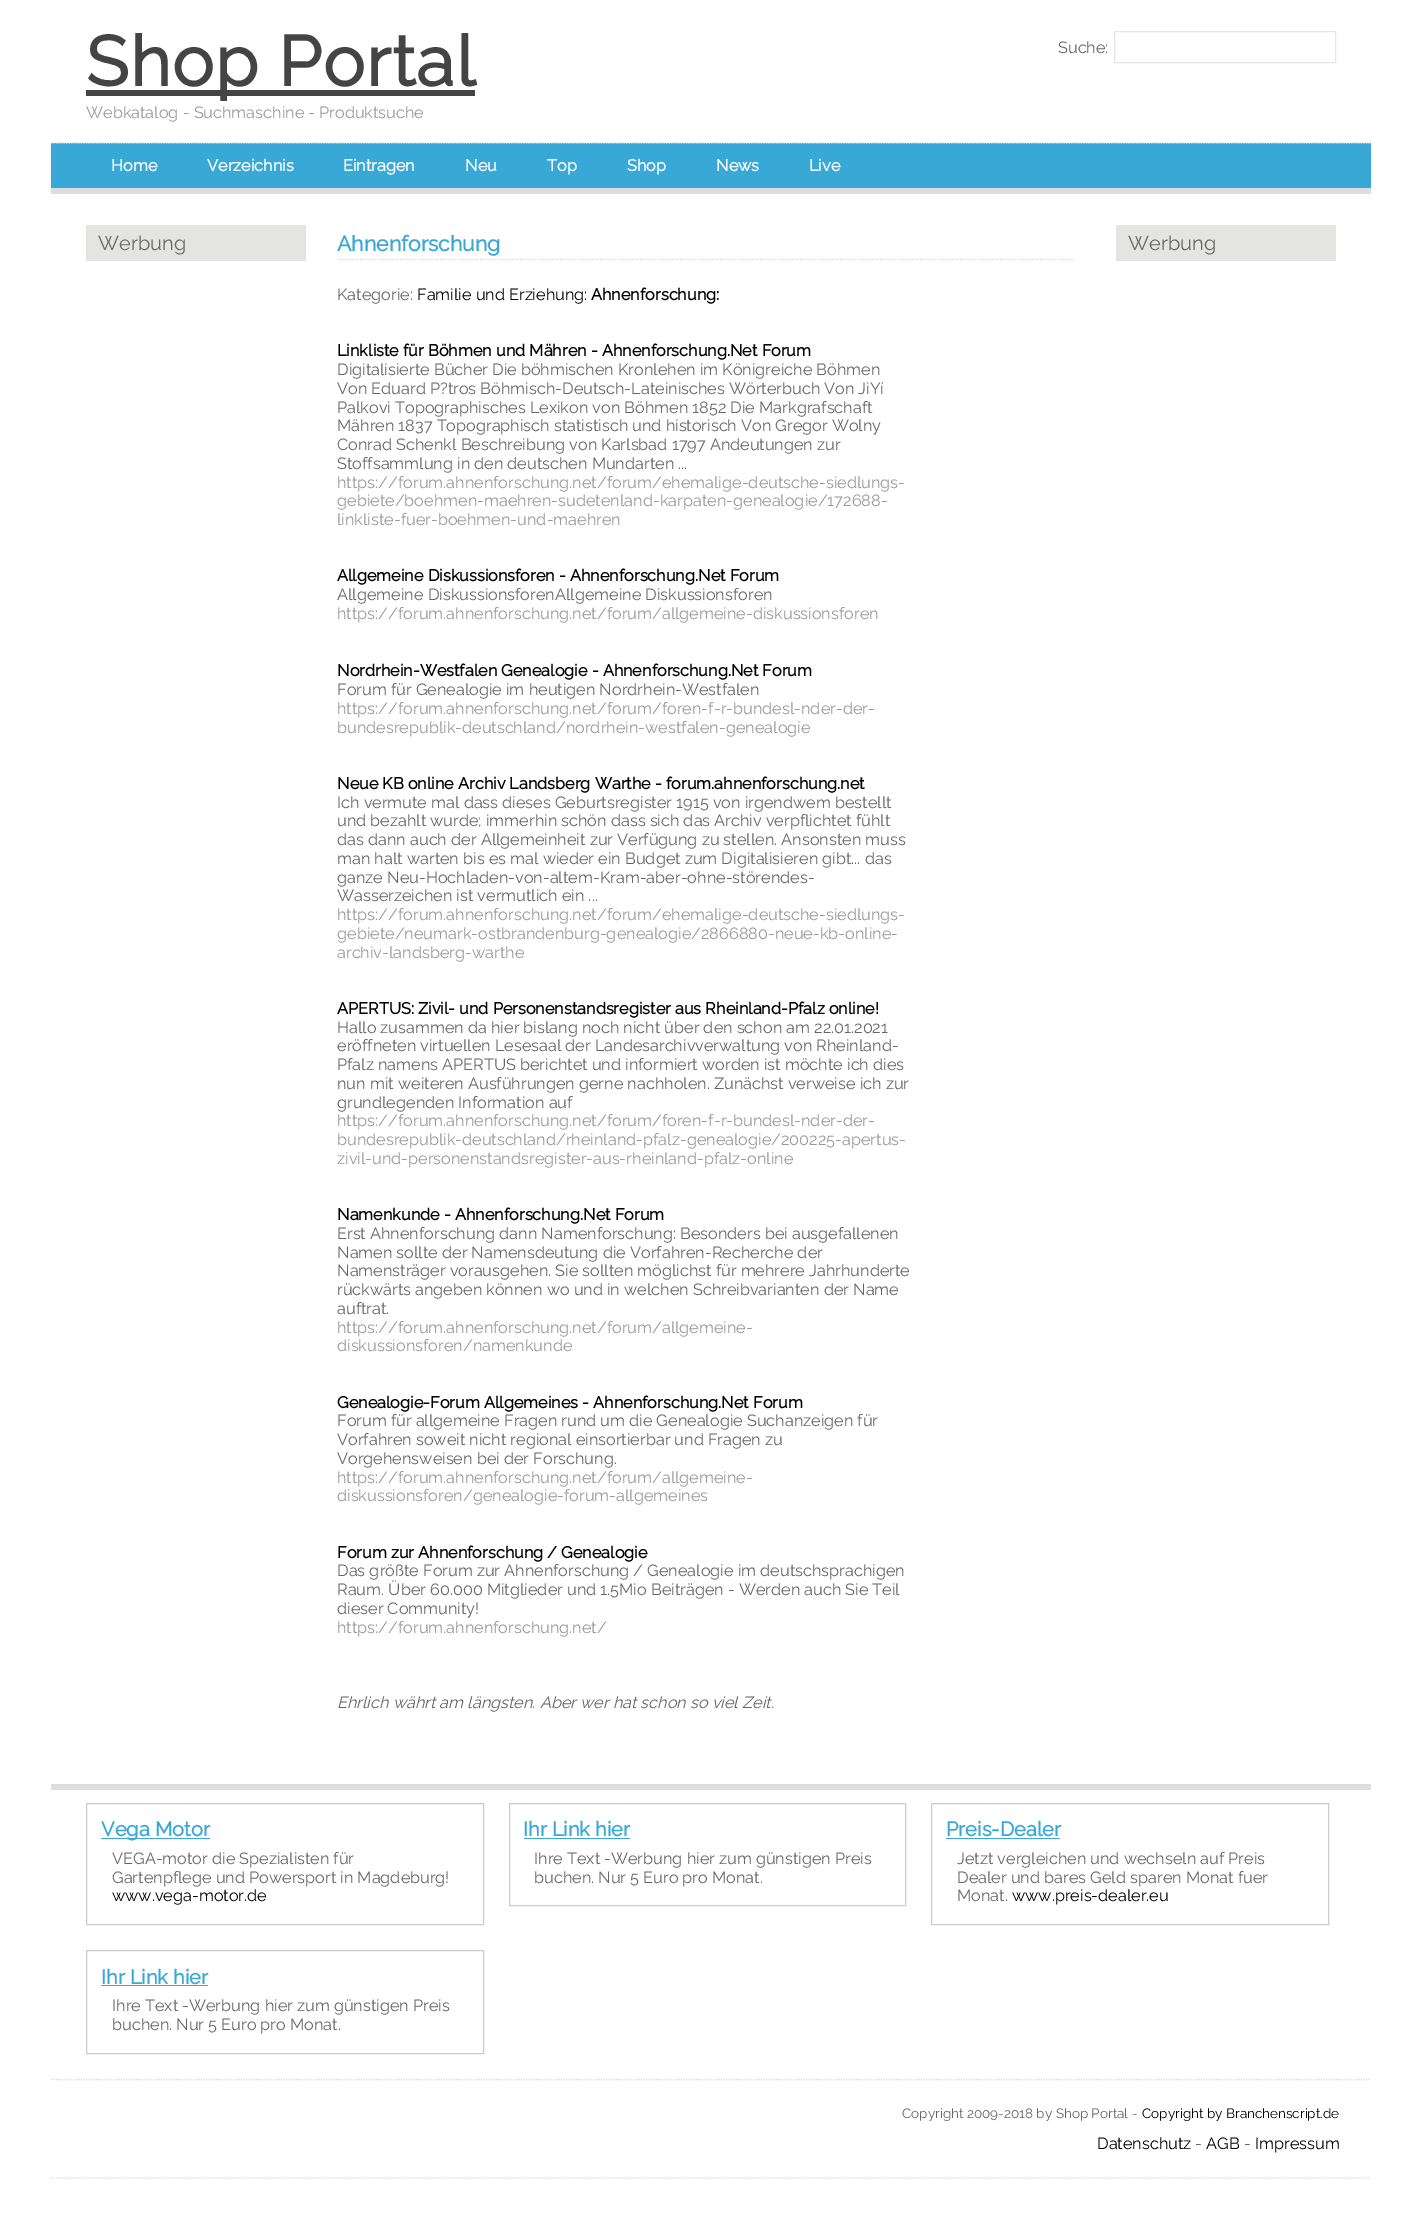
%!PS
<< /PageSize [1421 2217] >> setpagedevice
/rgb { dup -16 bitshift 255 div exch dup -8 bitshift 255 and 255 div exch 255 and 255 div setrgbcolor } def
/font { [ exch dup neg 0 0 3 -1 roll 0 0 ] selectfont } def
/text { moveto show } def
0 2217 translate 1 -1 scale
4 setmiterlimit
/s1 { /Raleway-Thin 16.25 font 16#999999 rgb } def
/s2 { /Raleway-Thin 16.25 font 16#666666 rgb } def
/s3 { /Raleway-Bold 16.25 font 16#FFFFFF rgb } def
/s4 { /Raleway-Thin 20 font 16#666666 rgb } def
/s5 { /Raleway-Bold 21.25 font 16#38A8D6 rgb } def
/s6 { /Raleway-Thin 16.25 font 16#000000 rgb } def
/s7 { /Raleway-Bold 16.25 font 16#000000 rgb } def
/s8 { /Raleway-ThinItalic 16.25 font 16#666666 rgb } def
/s9 { /Raleway-Bold 20 font 16#38A8D6 rgb } def
/s10 { /Raleway-Thin 13.5 font 16#666666 rgb } def
/s11 { /Raleway-Thin 13.5 font 16#000000 rgb } def
16#FFFFFF rgb
0 0 1421 2217 rectfill
16#444444 rgb
86 90 389 6 rectfill
/Raleway-Bold 70 font
86 86 moveto 1.25 0 (Shop Portal) ashow
s1
(Webkatalog - Suchmaschine - Produktsuche) 86 118 text
s2
(Suche:) 1058 53 text
16#E5E5E5 rgb
1114.5 31.5 221 31 rectstroke
16#38A8D6 rgb
51 143 1320 45 rectfill
16#DDDDDD rgb
1.2 setlinewidth
[1.25 1.25] 0 setdash
51 143 moveto 1371 143 lineto stroke
51 188 1320 6 rectfill
s3
(Home) 111 171 text
(Verzeichnis) 207 171 text
(Eintragen) 343 171 text
(Neu) 465 171 text
(Top) 547 171 text
(Shop) 627 171 text
(News) 716 171 text
(Live) 809 171 text
16#E4E4E2 rgb
86 225 220 36 rectfill
s4
(Werbung) 98 250 text
16#DDDDDD rgb
337.5 259.5 moveto 1075 259.5 lineto stroke
s5
(Ahnenforschung) 337 251 text
s2
(Kategorie:) 337 300 text
s6
(Familie und Erziehung:) 417 300 text
s7
(Ahnenforschung:) 591 300 text
(Linkliste für Böhmen und Mähren - Ahnenforschung.Net Forum) 337 356 text
s2
(Digitalisierte Bücher Die böhmischen Kronlehen im Königreiche Böhmen) 337 375 text
(Von Eduard P?tros Böhmisch-Deutsch-Lateinisches Wörterbuch Von JiYí) 337 394 text
(Palkovi Topographisches Lexikon von Böhmen 1852 Die Markgrafschaft) 337 413 text
(Mähren 1837 Topographisch statistisch und historisch Von Gregor Wolny) 337 431 text
(Conrad Schenkl Beschreibung von Karlsbad 1797 Andeutungen zur) 337 450 text
(Stoffsammlung in den deutschen Mundarten ...) 337 469 text
s1
(https://forum.ahnenforschung.net/forum/ehemalige-deutsche-siedlungs-) 337 488 text
(gebiete/boehmen-maehren-sudetenland-karpaten-genealogie/172688-) 337 506 text
(linkliste-fuer-boehmen-und-maehren) 337 525 text
s7
(Allgemeine Diskussionsforen - Ahnenforschung.Net Forum) 337 581 text
s2
(Allgemeine DiskussionsforenAllgemeine Diskussionsforen) 337 600 text
s1
(https://forum.ahnenforschung.net/forum/allgemeine-diskussionsforen) 337 619 text
s7
(Nordrhein-Westfalen Genealogie - Ahnenforschung.Net Forum) 337 676 text
s2
(Forum für Genealogie im heutigen Nordrhein-Westfalen) 337 695 text
s1
(https://forum.ahnenforschung.net/forum/foren-f-r-bundesl-nder-der-) 337 714 text
(bundesrepublik-deutschland/nordrhein-westfalen-genealogie) 337 733 text
s7
(Neue KB online Archiv Landsberg Warthe - forum.ahnenforschung.net) 337 789 text
s2
(Ich vermute mal dass dieses Geburtsregister 1915 von irgendwem bestellt) 337 808 text
(und bezahlt wurde; immerhin schön dass sich das Archiv verpflichtet fühlt) 337 826 text
(das dann auch der Allgemeinheit zur Verfügung zu stellen. Ansonsten muss) 337 845 text
(man halt warten bis es mal wieder ein Budget zum Digitalisieren gibt... das) 337 864 text
(ganze Neu-Hochladen-von-altem-Kram-aber-ohne-störendes-) 337 883 text
(Wasserzeichen ist vermutlich ein ...) 337 901 text
s1
(https://forum.ahnenforschung.net/forum/ehemalige-deutsche-siedlungs-) 337 920 text
(gebiete/neumark-ostbrandenburg-genealogie/2866880-neue-kb-online-) 337 939 text
(archiv-landsberg-warthe) 337 958 text
s7
(APERTUS: Zivil- und Personenstandsregister aus Rheinland-Pfalz online!) 337 1014 text
s2
(Hallo zusammen da hier bislang noch nicht über den schon am 22.01.2021) 337 1033 text
(eröffneten virtuellen Lesesaal der Landesarchivverwaltung von Rheinland-) 337 1051 text
(Pfalz namens APERTUS berichtet und informiert worden ist möchte ich dies) 337 1070 text
(nun mit weiteren Ausführungen gerne nachholen. Zunächst verweise ich zur) 337 1089 text
(grundlegenden Information auf) 337 1108 text
s1
(https://forum.ahnenforschung.net/forum/foren-f-r-bundesl-nder-der-) 337 1126 text
(bundesrepublik-deutschland/rheinland-pfalz-genealogie/200225-apertus-) 337 1145 text
(zivil-und-personenstandsregister-aus-rheinland-pfalz-online) 337 1164 text
s7
(Namenkunde - Ahnenforschung.Net Forum) 337 1220 text
s2
(Erst Ahnenforschung dann Namenforschung: Besonders bei ausgefallenen) 337 1239 text
(Namen sollte der Namensdeutung die Vorfahren-Recherche der) 337 1258 text
(Namensträger vorausgehen. Sie sollten möglichst für mehrere Jahrhunderte) 337 1276 text
(rückwärts angeben können wo und in welchen Schreibvarianten der Name) 337 1295 text
(auftrat.) 337 1314 text
s1
(https://forum.ahnenforschung.net/forum/allgemeine-) 337 1333 text
(diskussionsforen/namenkunde) 337 1351 text
s7
(Genealogie-Forum Allgemeines - Ahnenforschung.Net Forum) 337 1408 text
s2
(Forum für allgemeine Fragen rund um die Genealogie Suchanzeigen für) 337 1426 text
(Vorfahren soweit nicht regional einsortierbar und Fragen zu) 337 1445 text
(Vorgehensweisen bei der Forschung.) 337 1464 text
s1
(https://forum.ahnenforschung.net/forum/allgemeine-) 337 1483 text
(diskussionsforen/genealogie-forum-allgemeines) 337 1501 text
s7
(Forum zur Ahnenforschung / Genealogie) 337 1558 text
s2
(Das größte Forum zur Ahnenforschung / Genealogie im deutschsprachigen) 337 1576 text
(Raum. Über 60.000 Mitglieder und 1.5Mio Beiträgen - Werden auch Sie Teil) 337 1595 text
(dieser Community!) 337 1614 text
s1
(https://forum.ahnenforschung.net/) 337 1633 text
s8
(Ehrlich währt am längsten. Aber wer hat schon so viel Zeit.) 337 1708 text
16#E4E4E2 rgb
1116 225 220 36 rectfill
s4
(Werbung) 1128 250 text
16#DDDDDD rgb
51 1784 1320 6 rectfill
16#CCCCCC rgb
1 setlinewidth
[] 0 setdash
86.5 1803.5 397 121 rectstroke
16#38A8D6 rgb
101 1838 109 1 rectfill
s9
(Vega Motor) 101 1836 text
s2
(VEGA-motor die Spezialisten für) 112 1864 text
(Gartenpflege und Powersport in Magdeburg!) 112 1883 text
s6
(www.vega-motor.de) 112 1901 text
16#CCCCCC rgb
509.5 1803.5 396 102 rectstroke
s9
(Ihr Link hier) 523 1836 text
524 1838 106 1 rectfill
s2
(Ihre Text -Werbung hier zum günstigen Preis) 534 1864 text
(buchen. Nur 5 Euro pro Monat.) 534 1883 text
16#CCCCCC rgb
931.5 1803.5 397 121 rectstroke
s9
(Preis-Dealer) 946 1836 text
946 1838 114 1 rectfill
s2
(Jetzt vergleichen und wechseln auf Preis) 957 1864 text
(Dealer und bares Geld sparen Monat fuer) 957 1883 text
(Monat.) 957 1901 text
s6
(www.preis-dealer.eu) 1012 1901 text
16#CCCCCC rgb
86.5 1950.5 397 103 rectstroke
s9
(Ihr Link hier) 101 1984 text
101 1985 107 1 rectfill
s2
(Ihre Text -Werbung hier zum günstigen Preis) 112 2011 text
(buchen. Nur 5 Euro pro Monat.) 112 2030 text
16#DDDDDD rgb
1.2 setlinewidth
[1.25 1.25] 0 setdash
51 2079.5 moveto 1371 2079.5 lineto stroke
51 2178 moveto 1371 2178 lineto stroke
s10
(Copyright 2009-2018 by Shop Portal -) 902 2118 text
s11
(Copyright by Branchenscript.de) 1142 2118 text
s6
(Datenschutz) 1097 2149 text
s2
(-) 1195 2149 text
s6
(AGB) 1206 2149 text
s2
(-) 1244 2149 text
s6
(Impressum) 1255 2149 text
showpage
